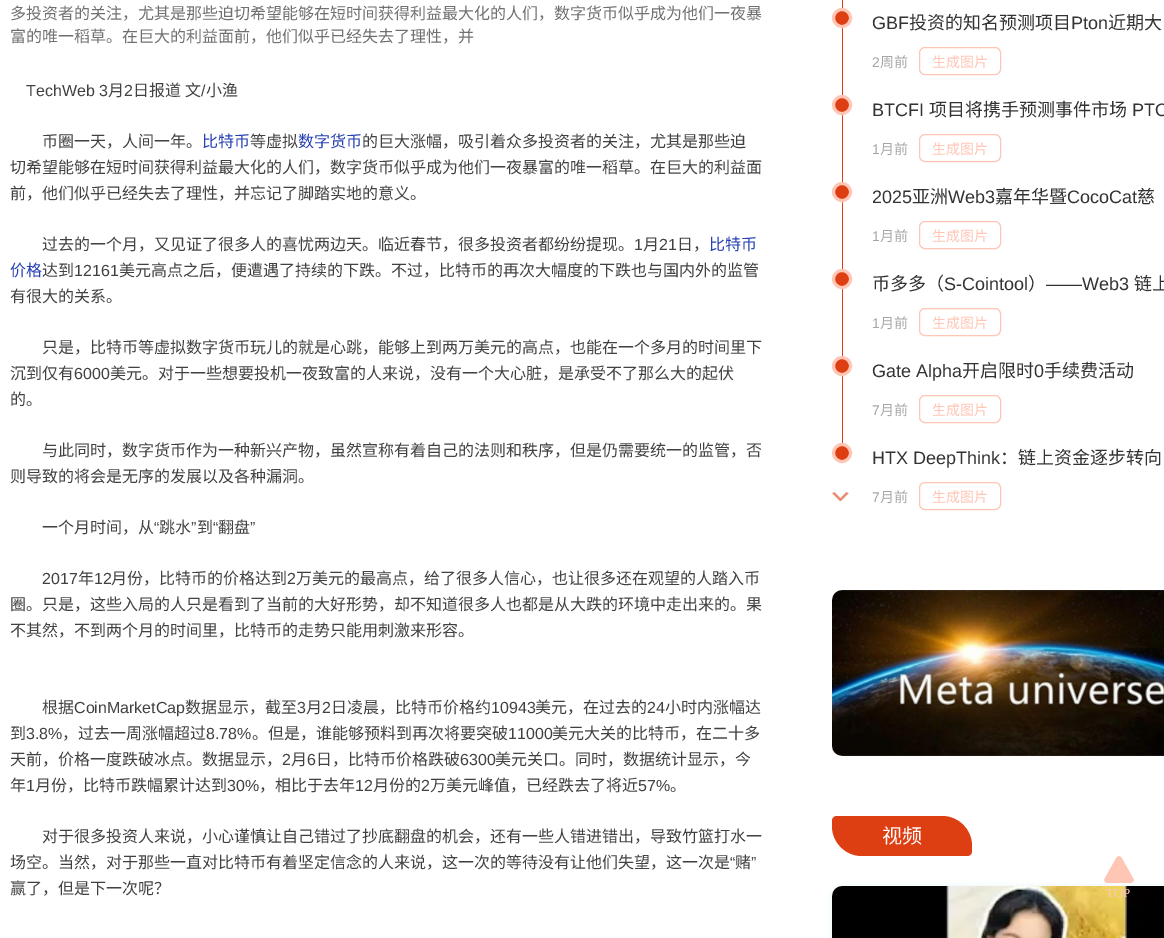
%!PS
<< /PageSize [1164 938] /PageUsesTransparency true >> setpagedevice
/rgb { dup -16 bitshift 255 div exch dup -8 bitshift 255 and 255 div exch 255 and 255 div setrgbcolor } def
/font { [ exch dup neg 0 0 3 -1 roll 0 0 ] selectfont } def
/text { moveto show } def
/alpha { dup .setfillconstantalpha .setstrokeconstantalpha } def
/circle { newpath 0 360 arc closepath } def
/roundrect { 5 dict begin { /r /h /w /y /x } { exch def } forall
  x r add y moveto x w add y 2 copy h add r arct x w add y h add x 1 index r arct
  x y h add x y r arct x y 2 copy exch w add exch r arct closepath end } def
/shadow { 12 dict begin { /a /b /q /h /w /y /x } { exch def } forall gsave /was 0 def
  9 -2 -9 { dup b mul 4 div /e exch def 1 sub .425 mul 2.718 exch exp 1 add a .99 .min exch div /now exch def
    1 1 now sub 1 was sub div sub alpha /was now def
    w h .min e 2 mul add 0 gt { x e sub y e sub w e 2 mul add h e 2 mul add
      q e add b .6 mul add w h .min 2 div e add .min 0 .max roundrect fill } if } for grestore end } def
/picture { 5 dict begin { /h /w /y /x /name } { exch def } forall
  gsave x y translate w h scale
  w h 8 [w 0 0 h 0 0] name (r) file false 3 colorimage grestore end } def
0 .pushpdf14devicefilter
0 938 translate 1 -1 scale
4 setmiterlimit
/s1 { /NotoSansCJKSC-Regular 16 font 16#707070 rgb } def
/s2 { /LiberationSans-Regular 16 font 16#414141 rgb } def
/s3 { /NotoSansCJKSC-Regular 16 font 16#414141 rgb } def
/s4 { /NotoSansCJKSC-Regular 16 font 16#2440B3 rgb } def
/s5 { /LiberationSans-Regular 18 font 16#333333 rgb } def
/s6 { /NotoSansCJKSC-Regular 18 font 16#333333 rgb } def
/s7 { /LiberationSans-Regular 14 font 16#A5A5A5 rgb } def
/s8 { /NotoSansCJKSC-Regular 14 font 16#A5A5A5 rgb } def
/s9 { /NotoSansCJKSC-Regular 14 font 16#FFC5B5 rgb } def
/s10 { /NotoSansCJKSC-Regular 20 font 16#FFFFFF rgb } def
16#FFFFFF rgb
0 0 1164 938 rectfill
s1
(多投资者的关注，尤其是那些迫切希望能够在短时间获得利益最大化的人们，数字货币似乎成为他们一夜暴) 10 19 text
(富的唯一稻草。在巨大的利益面前，他们似乎已经失去了理性，并) 10 42 text
s2
(TechWeb 3) 26 96 text
s3
(月) 108 96 text
s2
(2) 124 96 text
s3
(日报道) 133 96 text
(文) 185 96 text
s2
(/) 201 96 text
s3
(小渔) 206 96 text
(币圈一天，人间一年。) 42 147 text
s4
(比特币) 202 147 text
s3
(等虚拟) 250 147 text
s4
(数字货币) 298 147 text
s3
(的巨大涨幅，吸引着众多投资者的关注，尤其是那些迫) 362 147 text
(切希望能够在短时间获得利益最大化的人们，数字货币似乎成为他们一夜暴富的唯一稻草。在巨大的利益面) 10 173 text
(前，他们似乎已经失去了理性，并忘记了脚踏实地的意义。) 10 199 text
(过去的一个月，又见证了很多人的喜忧两边天。临近春节，很多投资者都纷纷提现。) 42 250 text
s2
(1) 634 250 text
s3
(月) 643 250 text
s2
(21) 659 250 text
s3
(日，) 677 250 text
s4
(比特币) 709 250 text
(价格) 10 276 text
s3
(达到) 42 276 text
s2
(12161) 74 276 text
s3
(美元高点之后，便遭遇了持续的下跌。不过，比特币的再次大幅度的下跌也与国内外的监管) 119 276 text
(有很大的关系。) 10 302 text
(只是，比特币等虚拟数字货币玩儿的就是心跳，能够上到两万美元的高点，也能在一个多月的时间里下) 42 353 text
(沉到仅有) 10 379 text
s2
(6000) 74 379 text
s3
(美元。对于一些想要投机一夜致富的人来说，没有一个大心脏，是承受不了那么大的起伏) 110 379 text
(的。) 10 405 text
(与此同时，数字货币作为一种新兴产物，虽然宣称有着自己的法则和秩序，但是仍需要统一的监管，否) 42 456 text
(则导致的将会是无序的发展以及各种漏洞。) 10 482 text
(一个月时间，从) 42 533 text
s2
(“) 154 533 text
s3
(跳水) 159 533 text
s2
(”) 191 533 text
s3
(到) 197 533 text
s2
(“) 213 533 text
s3
(翻盘) 218 533 text
s2
(”) 250 533 text
(2017) 42 584 text
s3
(年) 78 584 text
s2
(12) 94 584 text
s3
(月份，比特币的价格达到) 111 584 text
s2
(2) 287 584 text
s3
(万美元的最高点，给了很多人信心，也让很多还在观望的人踏入币) 296 584 text
(圈。只是，这些入局的人只是看到了当前的大好形势，却不知道很多人也都是从大跌的环境中走出来的。果) 10 610 text
(不其然，不到两个月的时间里，比特币的走势只能用刺激来形容。) 10 636 text
(根据) 42 713 text
s2
(CoinMarketCap) 74 713 text
s3
(数据显示，截至) 185 713 text
s2
(3) 297 713 text
s3
(月) 306 713 text
s2
(2) 322 713 text
s3
(日凌晨，比特币价格约) 331 713 text
s2
(10943) 491 713 text
s3
(美元，在过去的) 535 713 text
s2
(24) 647 713 text
s3
(小时内涨幅达) 665 713 text
(到) 10 739 text
s2
(3.8%) 26 739 text
s3
(，过去一周涨幅超过) 62 739 text
s2
(8.78%) 206 739 text
s3
(。但是，谁能够预料到再次将要突破) 252 739 text
s2
(11000) 508 739 text
s3
(美元大关的比特币，在二十多) 552 739 text
(天前，价格一度跌破冰点。数据显示，) 10 765 text
s2
(2) 282 765 text
s3
(月) 291 765 text
s2
(6) 307 765 text
s3
(日，比特币价格跌破) 316 765 text
s2
(6300) 460 765 text
s3
(美元关口。同时，数据统计显示，今) 495 765 text
(年) 10 791 text
s2
(1) 26 791 text
s3
(月份，比特币跌幅累计达到) 35 791 text
s2
(30%) 227 791 text
s3
(，相比于去年) 259 791 text
s2
(12) 355 791 text
s3
(月份的) 373 791 text
s2
(2) 421 791 text
s3
(万美元峰值，已经跌去了将近) 430 791 text
s2
(57%) 638 791 text
s3
(。) 670 791 text
(对于很多投资人来说，小心谨慎让自己错过了抄底翻盘的机会，还有一些人错进错出，导致竹篮打水一) 42 842 text
(场空。当然，对于那些一直对比特币有着坚定信念的人来说，这一次的等待没有让他们失望，这一次是) 10 868 text
s2
(“) 730 868 text
s3
(赌) 735 868 text
s2
(”) 751 868 text
s3
(赢了，但是下一次呢？) 10 894 text
16#DD3F12 rgb
842 0 1 443 rectfill
842 18 8.5 circle gsave fill grestore
16#FFC5B5 rgb
3 setlinewidth
stroke
s5
(GBF) 872 29 text
s6
(投资的知名预测项目) 909 29 text
s5
(Pton) 1071 29 text
s6
(近期大) 1108 29 text
s7
(2) 872 67 text
s8
(周前) 880 67 text
16#FFC5B5 rgb
1 setlinewidth
919.5 47.5 81 27 5.5 roundrect stroke
(生成图片) 932 67 text
16#DD3F12 rgb
842 105 8.5 circle gsave fill grestore
16#FFC5B5 rgb
3 setlinewidth
stroke
s5
(BTCFI) 872 116 text
s6
(项目将携手预测事件市场) 929 116 text
s5
(PTO) 1132 116 text
s7
(1) 872 154 text
s8
(月前) 880 154 text
16#FFC5B5 rgb
1 setlinewidth
919.5 134.5 81 27 5.5 roundrect stroke
(生成图片) 932 154 text
16#DD3F12 rgb
842 192 8.5 circle gsave fill grestore
16#FFC5B5 rgb
3 setlinewidth
stroke
s5
(2025) 872 203 text
s6
(亚洲) 912 203 text
s5
(Web3) 948 203 text
s6
(嘉年华暨) 995 203 text
s5
(CocoCat) 1067 203 text
s6
(慈) 1137 203 text
s7
(1) 872 241 text
s8
(月前) 880 241 text
16#FFC5B5 rgb
1 setlinewidth
919.5 221.5 81 27 5.5 roundrect stroke
(生成图片) 932 241 text
16#DD3F12 rgb
842 279 8.5 circle gsave fill grestore
16#FFC5B5 rgb
3 setlinewidth
stroke
s6
(币多多（) 872 290 text
s5
(S-Cointool) 944 290 text
s6
(）) 1028 290 text
s5
(——Web3) 1046 290 text
s6
(链上) 1134 290 text
s7
(1) 872 328 text
s8
(月前) 880 328 text
16#FFC5B5 rgb
1 setlinewidth
919.5 308.5 81 27 5.5 roundrect stroke
(生成图片) 932 328 text
16#DD3F12 rgb
842 366 8.5 circle gsave fill grestore
16#FFC5B5 rgb
3 setlinewidth
stroke
s5
(Gate Alpha) 872 377 text
s6
(开启限时) 962 377 text
s5
(0) 1034 377 text
s6
(手续费活动) 1044 377 text
s7
(7) 872 415 text
s8
(月前) 880 415 text
16#FFC5B5 rgb
1 setlinewidth
919.5 395.5 81 27 5.5 roundrect stroke
(生成图片) 932 415 text
(pic1.raw) 832 492 17 9 picture
16#DD3F12 rgb
842 453 8.5 circle gsave fill grestore
16#FFC5B5 rgb
3 setlinewidth
stroke
s5
(HTX DeepThink) 872 464 text
s6
(：链上资金逐步转向) 1000 464 text
s7
(7) 872 502 text
s8
(月前) 880 502 text
16#FFC5B5 rgb
1 setlinewidth
919.5 482.5 81 27 5.5 roundrect stroke
(生成图片) 932 502 text
(pic2.raw) 832 590 332 166 picture
16#DD3F12 rgb
837 816 moveto 942 816 lineto 958.5 816 972 829.5 972 846 curveto 972 851 lineto 972 854 970 856 967 856 curveto 862 856 lineto 845.5 856 832 842.5 832 826 curveto 832 821 lineto 832 818 834 816 837 816 curveto closepath fill
s10
(视频) 882 843 text
16#9DC0D1 rgb
832 886 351 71 10 3 0.22 shadow
(pic3.raw) 832 886 332 52 picture
(pic4.raw) 1104 856 30 41 picture
.poppdf14devicefilter showpage
